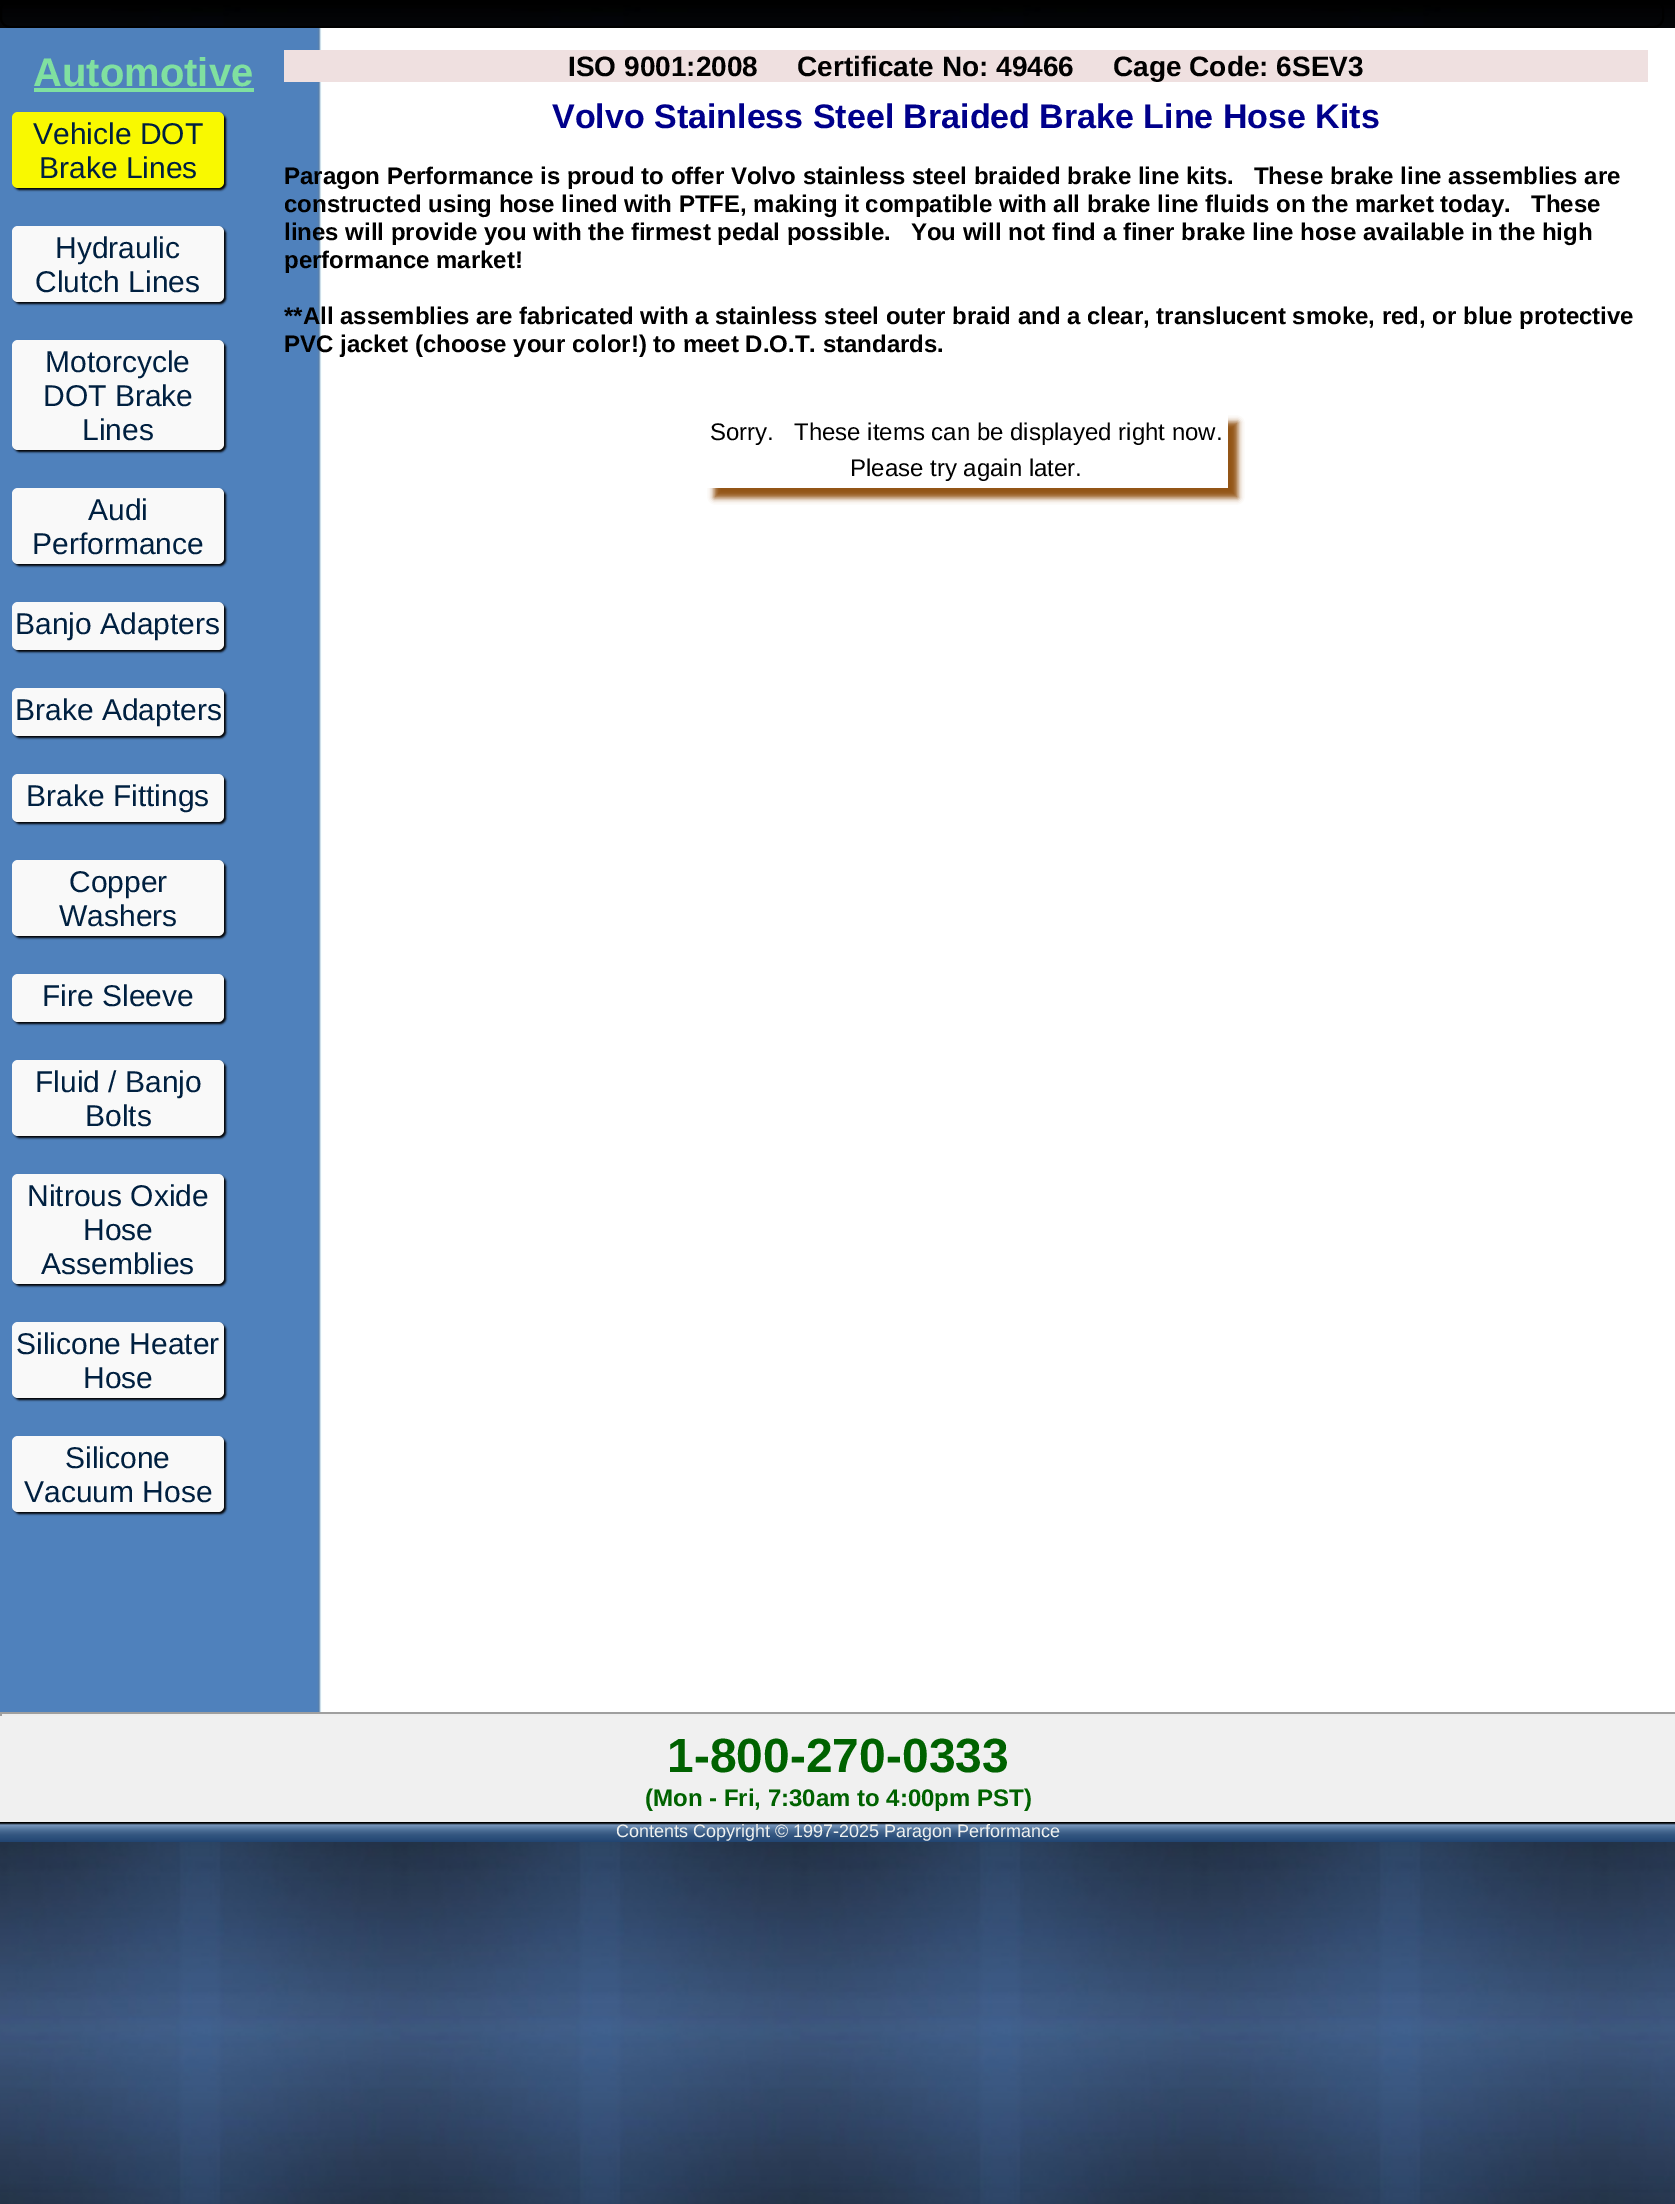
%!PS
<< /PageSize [1675 2204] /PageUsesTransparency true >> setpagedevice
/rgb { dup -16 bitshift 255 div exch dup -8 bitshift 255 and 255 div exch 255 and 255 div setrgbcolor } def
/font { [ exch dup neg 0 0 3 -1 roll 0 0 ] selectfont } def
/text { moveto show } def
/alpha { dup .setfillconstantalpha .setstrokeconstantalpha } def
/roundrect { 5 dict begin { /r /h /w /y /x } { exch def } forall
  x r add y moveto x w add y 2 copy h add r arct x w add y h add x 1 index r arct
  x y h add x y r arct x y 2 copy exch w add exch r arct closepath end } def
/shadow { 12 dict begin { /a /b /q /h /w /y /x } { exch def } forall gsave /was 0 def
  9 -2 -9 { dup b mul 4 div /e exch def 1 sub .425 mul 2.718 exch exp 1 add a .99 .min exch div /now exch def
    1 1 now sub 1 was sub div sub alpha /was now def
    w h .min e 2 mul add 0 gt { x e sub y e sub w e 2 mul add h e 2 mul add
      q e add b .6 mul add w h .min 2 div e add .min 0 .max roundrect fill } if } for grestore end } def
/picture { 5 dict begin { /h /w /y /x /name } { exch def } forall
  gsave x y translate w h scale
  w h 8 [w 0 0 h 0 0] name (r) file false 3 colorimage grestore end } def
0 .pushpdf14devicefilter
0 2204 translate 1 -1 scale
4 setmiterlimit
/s1 { /LiberationSans-Bold 40 font 16#80E0A0 rgb } def
/s2 { /LiberationSans-Regular 30 font 16#002040 rgb } def
/s3 { /LiberationSans-Bold 28 font 16#000000 rgb } def
/s4 { /LiberationSans-Bold 34 font 16#00008B rgb } def
/s5 { /LiberationSans-Bold 24 font 16#000000 rgb } def
/s6 { /LiberationSans-Regular 24 font 16#000000 rgb } def
/s7 { /LiberationSans-Bold 48 font 16#006200 rgb } def
/s8 { /LiberationSans-Bold 24 font 16#006200 rgb } def
/s9 { /LiberationSans-Regular 18 font 16#F0F2F0 rgb } def
16#FFFFFF rgb
0 0 1675 2204 rectfill
(pic1.raw) 0 0 1675 2204 picture
16#000000 rgb
2 setlinewidth
1 1 1662 26 9 roundrect stroke
16#FFFFFF rgb
322 28 1353 1684 rectfill
(pic2.raw) 0 28 322 1684 picture
s1
(Automotive) 33 86 text
34 88 220 4 rectfill
16#000000 rgb
14 114 212 76 6 1 1 shadow
16#F9F900 rgb
12 112 212 76 6 roundrect fill
s2
(Vehicle DOT) 33 144 text
(Brake Lines) 39 178 text
16#000000 rgb
14 228 212 76 6 1 1 shadow
16#F9F9F9 rgb
12 226 212 76 6 roundrect fill
s2
(Hydraulic) 55 258 text
(Clutch Lines) 35 292 text
16#000000 rgb
14 342 212 110 6 1 1 shadow
16#F9F9F9 rgb
12 340 212 110 6 roundrect fill
s2
(Motorcycle) 45 372 text
(DOT Brake) 43 406 text
(Lines) 82 440 text
16#000000 rgb
14 490 212 76 6 1 1 shadow
16#F9F9F9 rgb
12 488 212 76 6 roundrect fill
s2
(Audi) 88 520 text
(Performance) 32 554 text
16#000000 rgb
14 604 212 48 6 1 1 shadow
16#F9F9F9 rgb
12 602 212 48 6 roundrect fill
s2
(Banjo Adapters) 15 634 text
16#000000 rgb
14 690 212 48 6 1 1 shadow
16#F9F9F9 rgb
12 688 212 48 6 roundrect fill
s2
(Brake Adapters) 15 720 text
16#000000 rgb
14 776 212 48 6 1 1 shadow
16#F9F9F9 rgb
12 774 212 48 6 roundrect fill
s2
(Brake Fittings) 26 806 text
16#000000 rgb
14 862 212 76 6 1 1 shadow
16#F9F9F9 rgb
12 860 212 76 6 roundrect fill
s2
(Copper) 69 892 text
(Washers) 59 926 text
16#000000 rgb
14 976 212 48 6 1 1 shadow
16#F9F9F9 rgb
12 974 212 48 6 roundrect fill
s2
(Fire Sleeve) 42 1006 text
16#000000 rgb
14 1062 212 76 6 1 1 shadow
16#F9F9F9 rgb
12 1060 212 76 6 roundrect fill
s2
(Fluid / Banjo) 35 1092 text
(Bolts) 85 1126 text
16#000000 rgb
14 1176 212 110 6 1 1 shadow
16#F9F9F9 rgb
12 1174 212 110 6 roundrect fill
s2
(Nitrous Oxide) 27 1206 text
(Hose) 83 1240 text
(Assemblies) 41 1274 text
16#000000 rgb
14 1324 212 76 6 1 1 shadow
16#F9F9F9 rgb
12 1322 212 76 6 roundrect fill
s2
(Silicone Heater) 16 1354 text
(Hose) 83 1388 text
16#000000 rgb
14 1438 212 76 6 1 1 shadow
16#F9F9F9 rgb
12 1436 212 76 6 roundrect fill
s2
(Silicone) 65 1468 text
(Vacuum Hose) 24 1502 text
16#EFE0E0 rgb
284 50 1364 32 rectfill
s3
(ISO 9001:2008) 568 76 text
(Certificate No: 49466) 797 76 text
(Cage Code: 6SEV3) 1113 76 text
s4
(Volvo Stainless Steel Braided Brake Line Hose Kits) 552 128 text
s5
(Paragon Performance is proud to offer Volvo stainless steel braided brake line kits.   These brake line assemblies are) 284 184 text
(constructed using hose lined with PTFE, making it compatible with all brake line fluids on the market today.   These) 284 212 text
(lines will provide you with the firmest pedal possible.   You will not find a finer brake line hose available in the high) 284 240 text
(performance market!) 284 268 text
(**All assemblies are fabricated with a stainless steel outer braid and a clear, translucent smoke, red, or blue protective) 284 324 text
(PVC jacket \(choose your color!\) to meet D.O.T. standards.) 284 352 text
gsave
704 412 moveto 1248 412 lineto 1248 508 lineto 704 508 lineto closepath 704 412 moveto 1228 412 lineto 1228 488 lineto 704 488 lineto closepath eoclip newpath
16#905010 rgb
714 422 524 76 0 3 1 shadow
grestore
s6
(Sorry.   These items can be displayed right now.) 710 440 text
(Please try again later.) 850 476 text
16#F0F0F0 rgb
0 1716 1675 106 rectfill
16#9F9F9F rgb
0 1712 1675 2 rectfill
16#EEEEEE rgb
0 1714 1675 2 rectfill
16#9F9F9F rgb
0 1712 2 4 rectfill
s7
(1-800-270-0333) 667 1772 text
s8
(\(Mon - Fri, 7:30am to 4:00pm PST\)) 645 1806 text
(pic3.raw) 0 1822 1675 20 picture
s9
(Contents Copyright © 1997-2025 Paragon Performance) 616 1837 text
.poppdf14devicefilter showpage
